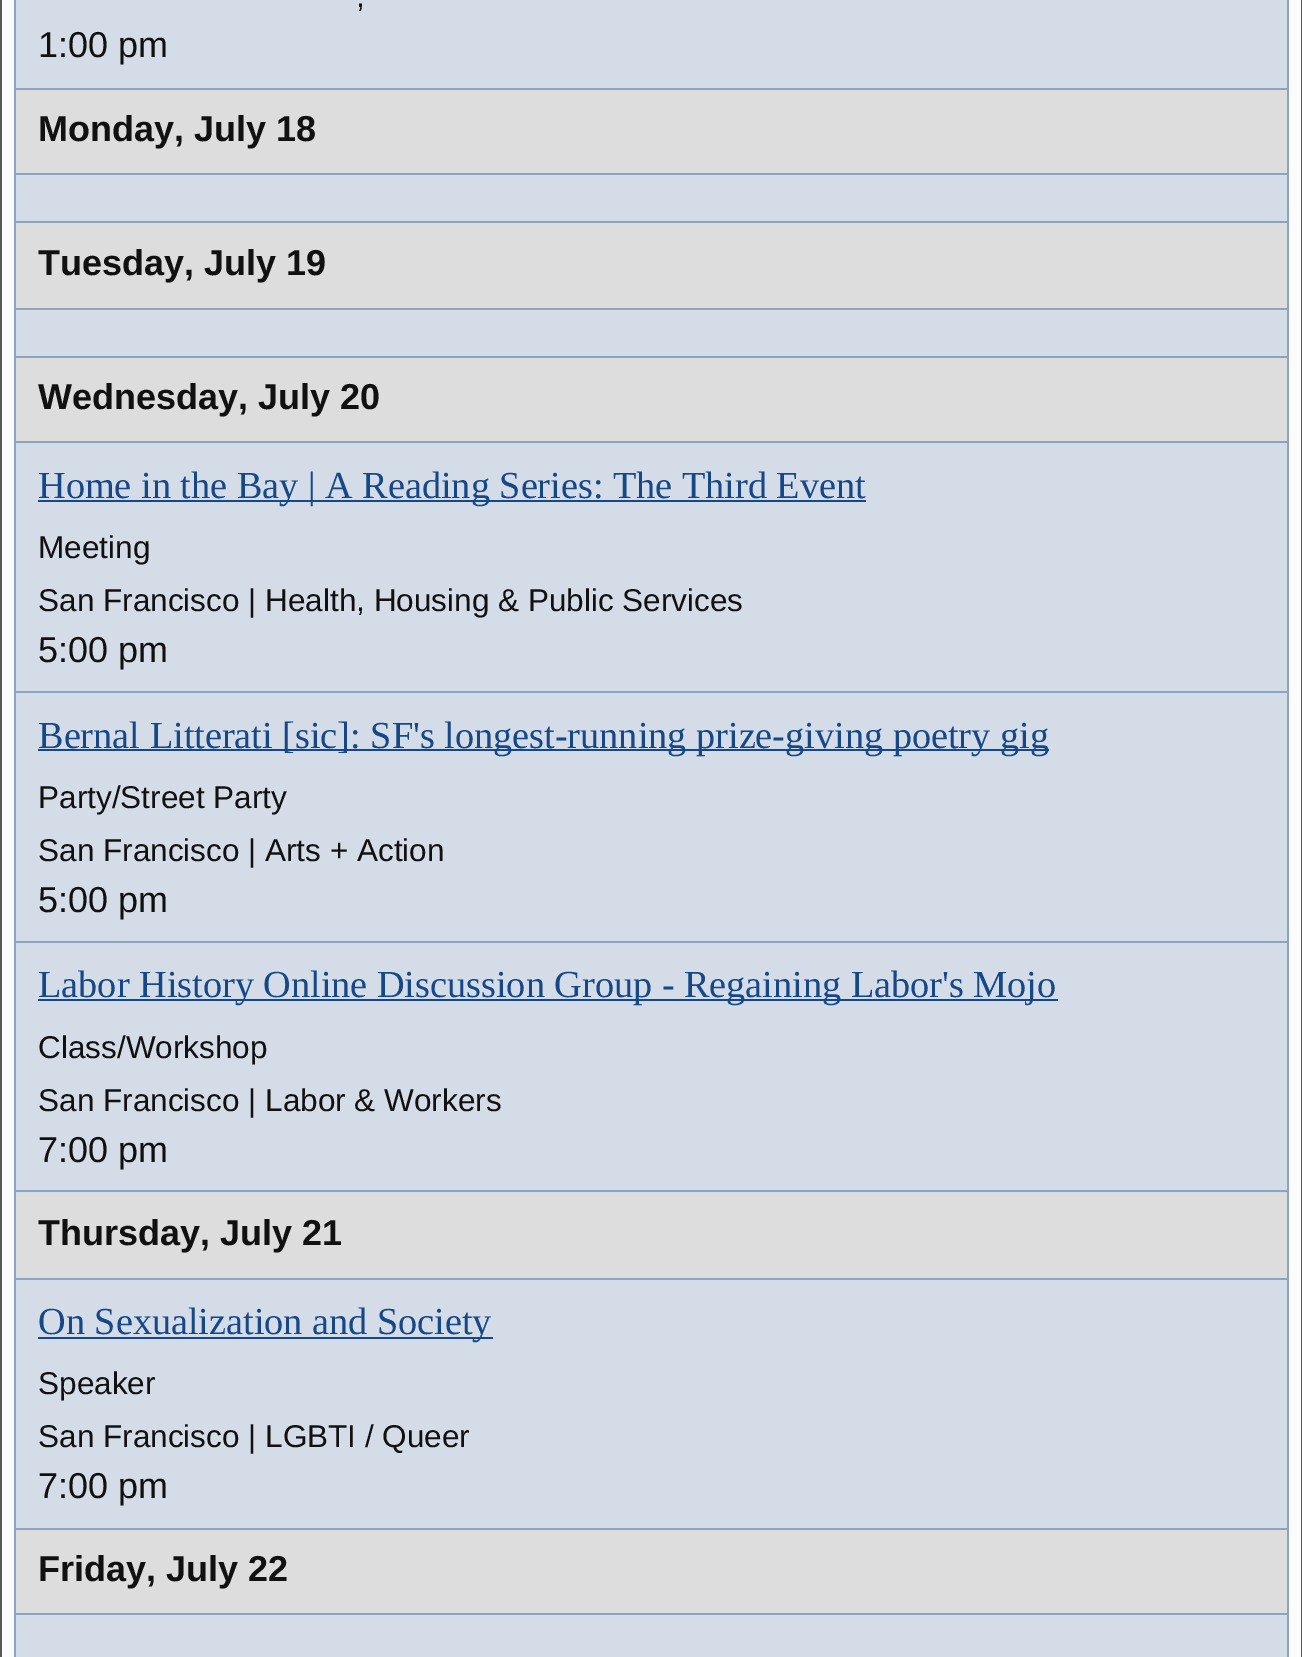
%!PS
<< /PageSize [1302 1657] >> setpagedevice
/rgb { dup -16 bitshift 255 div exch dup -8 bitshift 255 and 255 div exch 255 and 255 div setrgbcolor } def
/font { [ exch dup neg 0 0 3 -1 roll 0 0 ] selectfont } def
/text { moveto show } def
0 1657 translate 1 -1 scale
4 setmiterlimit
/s1 { /LiberationSans-Regular 31.5 font 16#111111 rgb } def
/s2 { /LiberationSans-Regular 36 font 16#111111 rgb } def
/s3 { /LiberationSans-Bold 36 font 16#111111 rgb } def
/s4 { /LiberationSerif-Regular 38.25 font 16#164888 rgb } def
16#FCFCFC rgb
0 0 1302 1657 rectfill
16#585858 rgb
1301 0 1 1657 rectfill
0 0 2 1657 rectfill
16#D4DCE8 rgb
16 0 1271 1657 rectfill
16#8DA3C4 rgb
1287 0 2 88 rectfill
14 0 2 88 rectfill
s1
(,) 356 7 text
s2
(1:00 pm) 38 57 text
16#8DA3C4 rgb
14 88 1275 2 rectfill
1287 88 2 133 rectfill
14 88 2 133 rectfill
16#DDDDDD rgb
16 90 1271 86 rectfill
16#8DA3C4 rgb
16 173 1271 2 rectfill
s3
(Monday, July 18) 38 141 text
16#8DA3C4 rgb
14 221 1275 2 rectfill
1287 221 2 135 rectfill
14 221 2 135 rectfill
16#DDDDDD rgb
16 223 1271 88 rectfill
16#8DA3C4 rgb
16 308 1271 2 rectfill
s3
(Tuesday, July 19) 38 275 text
16#8DA3C4 rgb
14 356 1275 2 rectfill
1287 356 2 834 rectfill
14 356 2 834 rectfill
16#DDDDDD rgb
16 358 1271 83 rectfill
16#8DA3C4 rgb
16 441 1271 2 rectfill
s3
(Wednesday, July 20) 38 409 text
16#8DA3C4 rgb
16 691 1271 2 rectfill
16#164888 rgb
38 500 828 2 rectfill
s4
(Home in the Bay | A Reading Series: The Third Event) 38 498 text
s1
(Meeting) 38 558 text
(San Francisco | Health, Housing & Public Services) 38 611 text
s2
(5:00 pm) 38 662 text
16#8DA3C4 rgb
16 941 1271 2 rectfill
16#164888 rgb
38 749 1011 2 rectfill
s4
(Bernal Litterati [sic]: SF's longest-running prize-giving poetry gig) 38 748 text
s1
(Party/Street Party) 38 808 text
(San Francisco | Arts + Action) 38 861 text
s2
(5:00 pm) 38 912 text
16#164888 rgb
38 999 1020 2 rectfill
s4
(Labor History Online Discussion Group - Regaining Labor's Mojo) 38 997 text
s1
(Class/Workshop) 38 1058 text
(San Francisco | Labor & Workers) 38 1111 text
s2
(7:00 pm) 38 1162 text
16#8DA3C4 rgb
14 1190 1275 2 rectfill
1287 1190 2 338 rectfill
14 1190 2 338 rectfill
16#DDDDDD rgb
16 1193 1271 85 rectfill
16#8DA3C4 rgb
16 1278 1271 2 rectfill
s3
(Thursday, July 21) 38 1245 text
16#164888 rgb
38 1337 455 2 rectfill
s4
(On Sexualization and Society) 38 1334 text
s1
(Speaker) 38 1394 text
(San Francisco | LGBTI / Queer) 38 1447 text
s2
(7:00 pm) 38 1498 text
16#8DA3C4 rgb
14 1528 1275 2 rectfill
1287 1528 2 129 rectfill
14 1528 2 129 rectfill
16#DDDDDD rgb
16 1530 1271 86 rectfill
16#8DA3C4 rgb
16 1613 1271 2 rectfill
s3
(Friday, July 22) 38 1581 text
showpage
